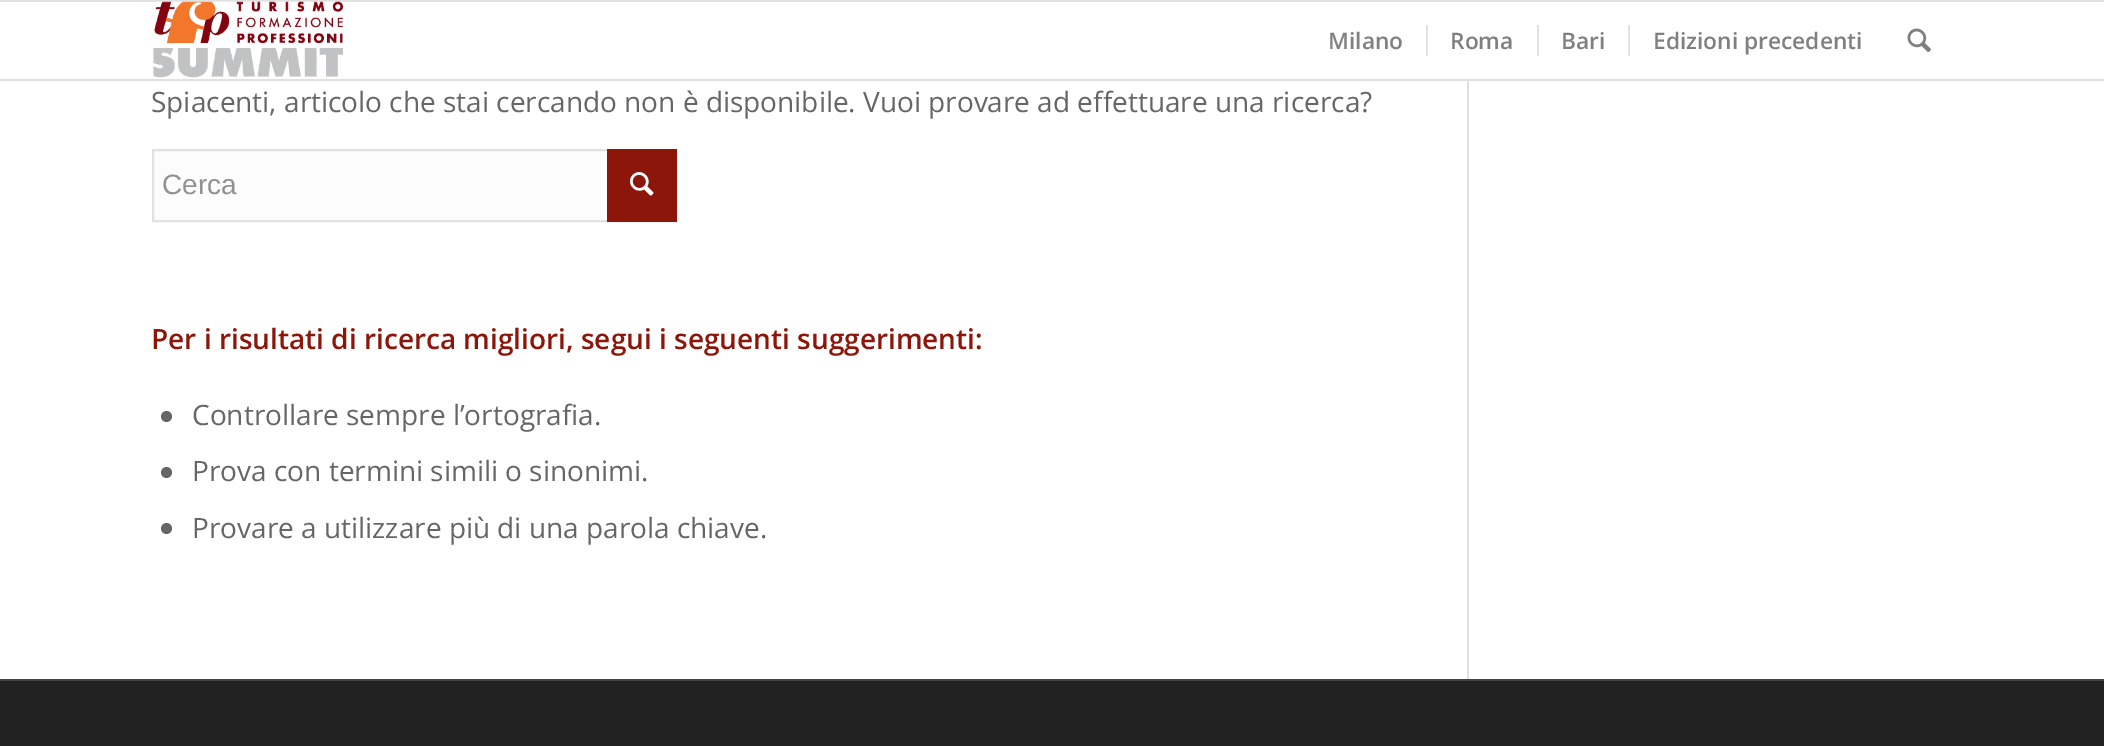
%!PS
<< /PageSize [2104 746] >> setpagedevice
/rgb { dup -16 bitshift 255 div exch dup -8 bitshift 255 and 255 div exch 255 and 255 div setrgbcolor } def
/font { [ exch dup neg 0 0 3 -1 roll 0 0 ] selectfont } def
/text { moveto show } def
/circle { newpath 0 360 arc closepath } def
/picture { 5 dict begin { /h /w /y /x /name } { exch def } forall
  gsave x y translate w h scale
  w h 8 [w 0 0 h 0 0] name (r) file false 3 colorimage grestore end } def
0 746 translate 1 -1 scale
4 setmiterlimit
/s1 { /OpenSans-SemiBold 22.75 font 16#808080 rgb } def
/s2 { /OpenSans-Regular 28 font 16#666666 rgb } def
/s3 { /LiberationSans-Regular 28 font 16#919191 rgb } def
/s4 { /OpenSans-SemiBold 28 font 16#8B1609 rgb } def
16#FFFFFF rgb
0 0 2104 746 rectfill
16#E1E1E1 rgb
0 0 2104 2 rectfill
0 79 2104 2 rectfill
(pic1.raw) 152 1 191 77 picture
s1
(Milano) 1328 49 text
(Roma) 1450 49 text
16#E1E1E1 rgb
1426 25 2 31 rectfill
s1
(Bari) 1561 49 text
16#E1E1E1 rgb
1537 25 2 31 rectfill
s1
(Edizioni precedenti) 1653 49 text
16#E1E1E1 rgb
1628 25 2 31 rectfill
(pic2.raw) 1907 28 24 25 picture
1467 81 2 598 rectfill
s2
(Spiacenti, articolo che stai cercando non è disponibile. Vuoi provare ad effettuare una ricerca?) 151 112 text
16#FCFCFC rgb
154 151 453 69 rectfill
16#E1E1E1 rgb
2 setlinewidth
153 150 523 71 rectstroke
s3
(Cerca) 162 194 text
16#8B1609 rgb
607 149 70 73 rectfill
(pic3.raw) 630 172 24 24 picture
s4
(Per i risultati di ricerca migliori, segui i seguenti suggerimenti:) 151 349 text
16#666666 rgb
166.5 416.5 5.5 circle fill
s2
(Controllare sempre l’ortografia.) 192 425 text
166.5 472.5 5.5 circle fill
(Prova con termini simili o sinonimi.) 192 481 text
166.5 528.5 5.5 circle fill
(Provare a utilizzare più di una parola chiave.) 192 538 text
16#222222 rgb
0 681 2104 65 rectfill
16#444444 rgb
0 679 2104 2 rectfill
showpage
